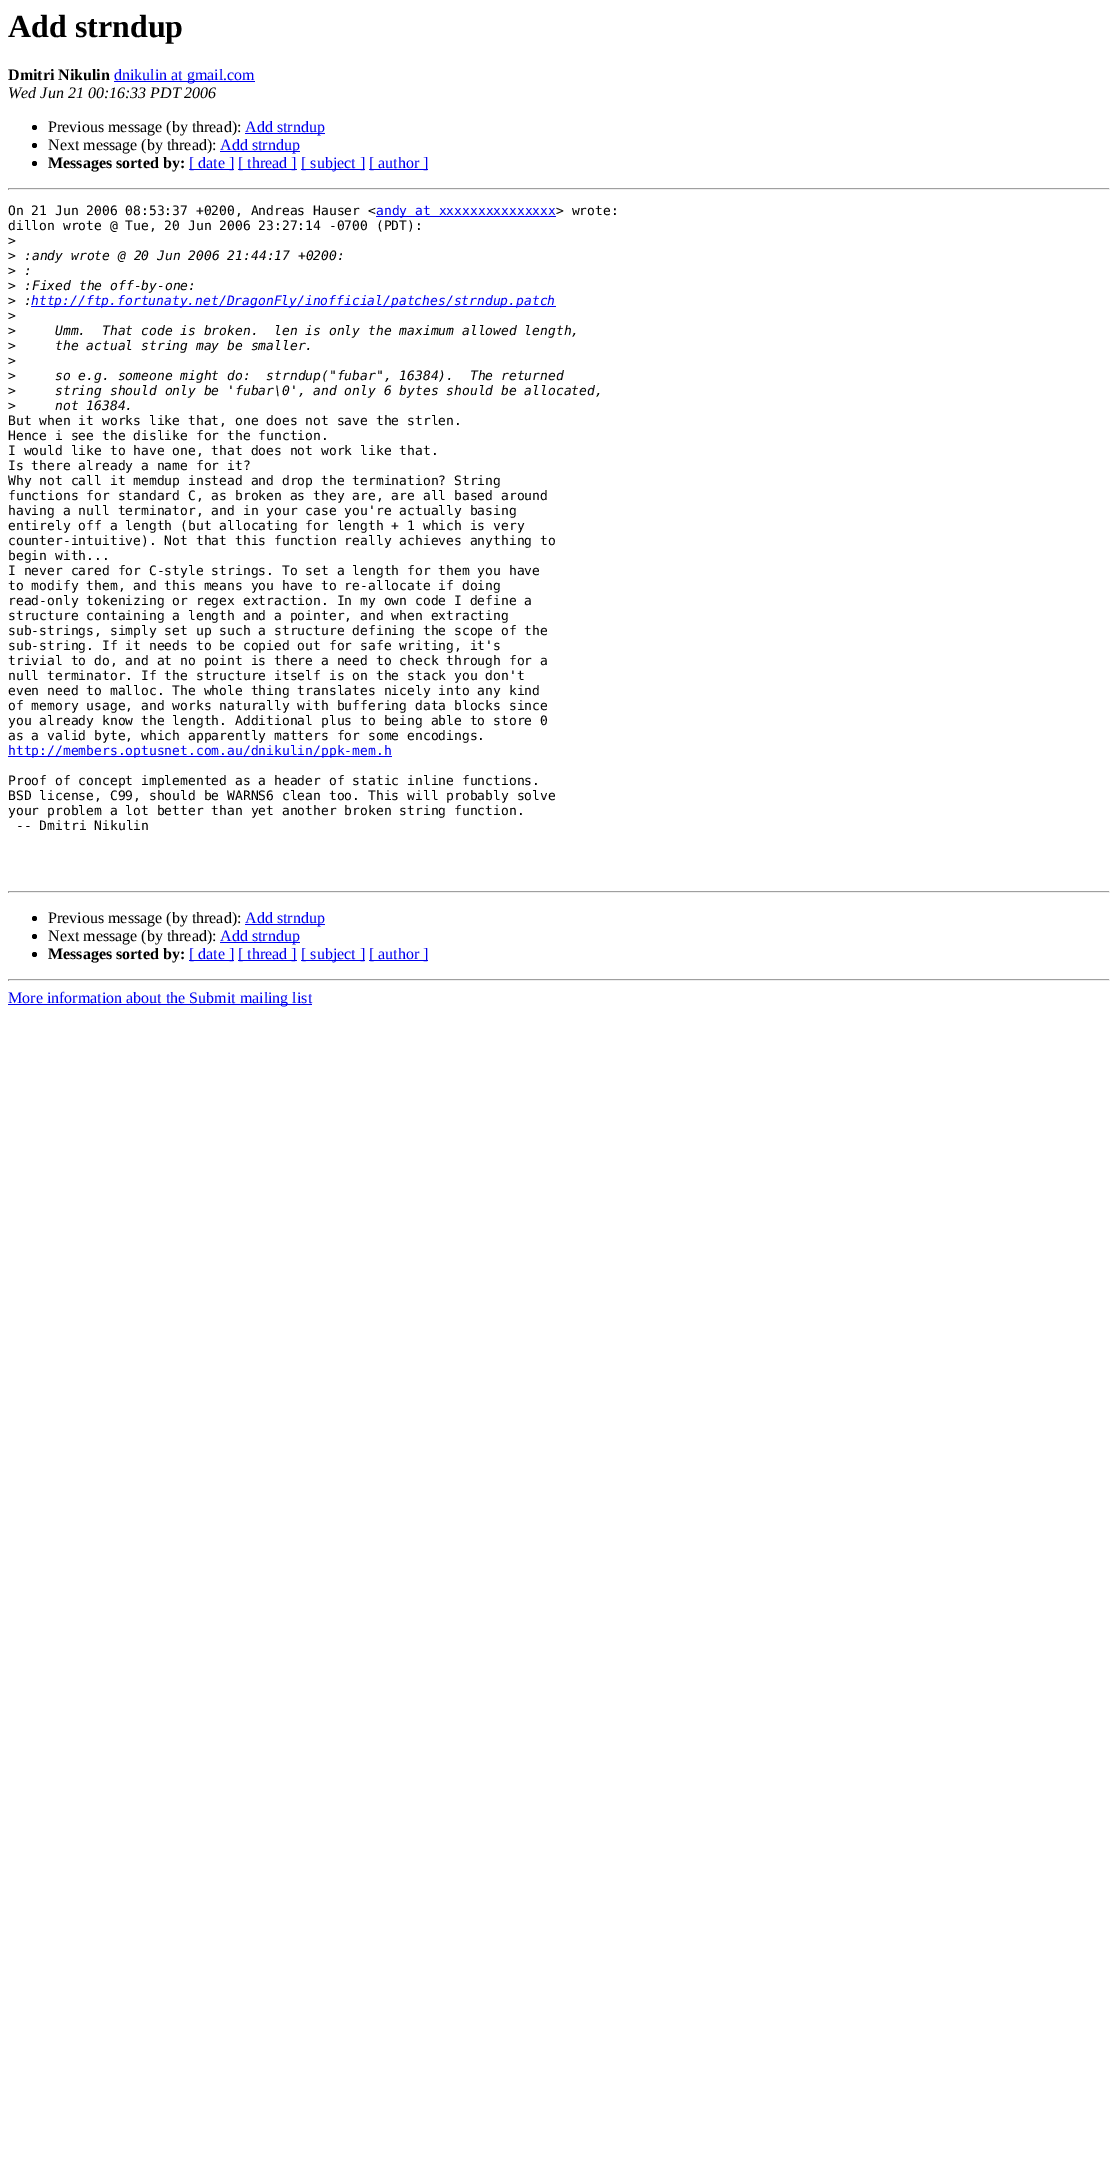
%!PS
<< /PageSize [1118 2172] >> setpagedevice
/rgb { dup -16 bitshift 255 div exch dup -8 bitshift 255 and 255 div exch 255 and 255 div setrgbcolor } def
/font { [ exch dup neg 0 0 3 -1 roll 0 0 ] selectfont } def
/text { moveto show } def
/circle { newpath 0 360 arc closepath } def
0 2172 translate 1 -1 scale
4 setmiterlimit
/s1 { /LiberationSerif-Bold 32 font 16#000000 rgb } def
/s2 { /LiberationSerif-Bold 16 font 16#000000 rgb } def
/s3 { /LiberationSerif-Regular 16 font 16#0000EE rgb } def
/s4 { /LiberationSerif-Italic 16 font 16#000000 rgb } def
/s5 { /LiberationSerif-Regular 16 font 16#000000 rgb } def
/s6 { /DejaVuSansMono-Regular 13 font 16#000000 rgb } def
/s7 { /DejaVuSansMono-Regular 13 font 16#0000EE rgb } def
/s8 { /DejaVuSansMono-Italic 13 font 16#000000 rgb } def
/s9 { /DejaVuSansMono-Italic 13 font 16#0000EE rgb } def
16#FFFFFF rgb
0 0 1118 2172 rectfill
s1
(Add strndup) 8 37 text
s2
(Dmitri Nikulin) 8 80 text
16#0000EE rgb
114 81 141 1 rectfill
s3
(dnikulin at gmail.com) 114 80 text
s4
(Wed Jun 21 00:16:33 PDT 2006) 8 98 text
34.5 127.5 2.5 circle fill
s5
(Previous message \(by thread\):) 48 132 text
16#0000EE rgb
245 133 80 1 rectfill
(Add strndup) 245 132 text
16#000000 rgb
34.5 145.5 2.5 circle fill
(Next message \(by thread\):) 48 150 text
16#0000EE rgb
220 151 80 1 rectfill
(Add strndup) 220 150 text
16#000000 rgb
34.5 163.5 2.5 circle fill
s2
(Messages sorted by:) 48 168 text
16#0000EE rgb
189 169 45 1 rectfill
s3
([ date ]) 189 168 text
238 169 59 1 rectfill
([ thread ]) 238 168 text
301 169 64 1 rectfill
([ subject ]) 301 168 text
369 169 59 1 rectfill
([ author ]) 369 168 text
16#9F9F9F rgb
8 188 1102 1 rectfill
16#EEEEEE rgb
1109 188 1 2 rectfill
8 189 1102 1 rectfill
16#9F9F9F rgb
8 188 1 2 rectfill
s6
(On 21 Jun 2006 08:53:37 +0200, Andreas Hauser <) 8 215 text
16#0000EE rgb
376 216 180 1 rectfill
(andy at xxxxxxxxxxxxxxx) 376 215 text
s6
(> wrote:) 556 215 text
(dillon wrote @ Tue, 20 Jun 2006 23:27:14 -0700 \(PDT\):) 8 230 text
(>) 8 245 text
(>) 8 260 text
s8
(:andy wrote @ 20 Jun 2006 21:44:17 +0200:) 24 260 text
s6
(>) 8 275 text
s8
(:) 24 275 text
s6
(>) 8 290 text
s8
(:Fixed the off-by-one:) 24 290 text
s6
(>) 8 305 text
s8
(:) 24 305 text
16#0000EE rgb
31 306 525 1 rectfill
(http://ftp.fortunaty.net/DragonFly/inofficial/patches/strndup.patch) 31 305 text
s6
(>) 8 320 text
(>) 8 335 text
s8
(Umm.  That code is broken.  len is only the maximum allowed length,) 55 335 text
s6
(>) 8 350 text
s8
(the actual string may be smaller.) 55 350 text
s6
(>) 8 365 text
(>) 8 380 text
s8
(so e.g. someone might do:  strndup\("fubar", 16384\).  The returned) 55 380 text
s6
(>) 8 395 text
s8
(string should only be 'fubar\\0', and only 6 bytes should be allocated,) 55 395 text
s6
(>) 8 410 text
s8
(not 16384.) 55 410 text
s6
(But when it works like that, one does not save the strlen.) 8 425 text
(Hence i see the dislike for the function.) 8 440 text
(I would like to have one, that does not work like that.) 8 455 text
(Is there already a name for it?) 8 470 text
(Why not call it memdup instead and drop the termination? String) 8 485 text
(functions for standard C, as broken as they are, are all based around) 8 500 text
(having a null terminator, and in your case you're actually basing) 8 515 text
(entirely off a length \(but allocating for length + 1 which is very) 8 530 text
(counter-intuitive\). Not that this function really achieves anything to) 8 545 text
(begin with...) 8 560 text
(I never cared for C-style strings. To set a length for them you have) 8 575 text
(to modify them, and this means you have to re-allocate if doing) 8 590 text
(read-only tokenizing or regex extraction. In my own code I define a) 8 605 text
(structure containing a length and a pointer, and when extracting) 8 620 text
(sub-strings, simply set up such a structure defining the scope of the) 8 635 text
(sub-string. If it needs to be copied out for safe writing, it's) 8 650 text
(trivial to do, and at no point is there a need to check through for a) 8 665 text
(null terminator. If the structure itself is on the stack you don't) 8 680 text
(even need to malloc. The whole thing translates nicely into any kind) 8 695 text
(of memory usage, and works naturally with buffering data blocks since) 8 710 text
(you already know the length. Additional plus to being able to store 0) 8 725 text
(as a valid byte, which apparently matters for some encodings.) 8 740 text
16#0000EE rgb
8 756 384 1 rectfill
(http://members.optusnet.com.au/dnikulin/ppk-mem.h) 8 755 text
s6
(Proof of concept implemented as a header of static inline functions.) 8 785 text
(BSD license, C99, should be WARNS6 clean too. This will probably solve) 8 800 text
(your problem a lot better than yet another broken string function.) 8 815 text
(-- Dmitri Nikulin) 16 830 text
16#9F9F9F rgb
8 891 1102 1 rectfill
16#EEEEEE rgb
1109 891 1 2 rectfill
8 892 1102 1 rectfill
16#9F9F9F rgb
8 891 1 2 rectfill
16#000000 rgb
34.5 918.5 2.5 circle fill
s5
(Previous message \(by thread\):) 48 923 text
16#0000EE rgb
245 924 80 1 rectfill
(Add strndup) 245 923 text
16#000000 rgb
34.5 936.5 2.5 circle fill
(Next message \(by thread\):) 48 941 text
16#0000EE rgb
220 942 80 1 rectfill
(Add strndup) 220 941 text
16#000000 rgb
34.5 954.5 2.5 circle fill
s2
(Messages sorted by:) 48 959 text
16#0000EE rgb
189 960 45 1 rectfill
s3
([ date ]) 189 959 text
238 960 59 1 rectfill
([ thread ]) 238 959 text
301 960 64 1 rectfill
([ subject ]) 301 959 text
369 960 59 1 rectfill
([ author ]) 369 959 text
16#9F9F9F rgb
8 979 1102 1 rectfill
16#EEEEEE rgb
1109 979 1 2 rectfill
8 980 1102 1 rectfill
16#9F9F9F rgb
8 979 1 2 rectfill
16#0000EE rgb
8 1004 304 1 rectfill
(More information about the Submit mailing list) 8 1003 text
showpage
